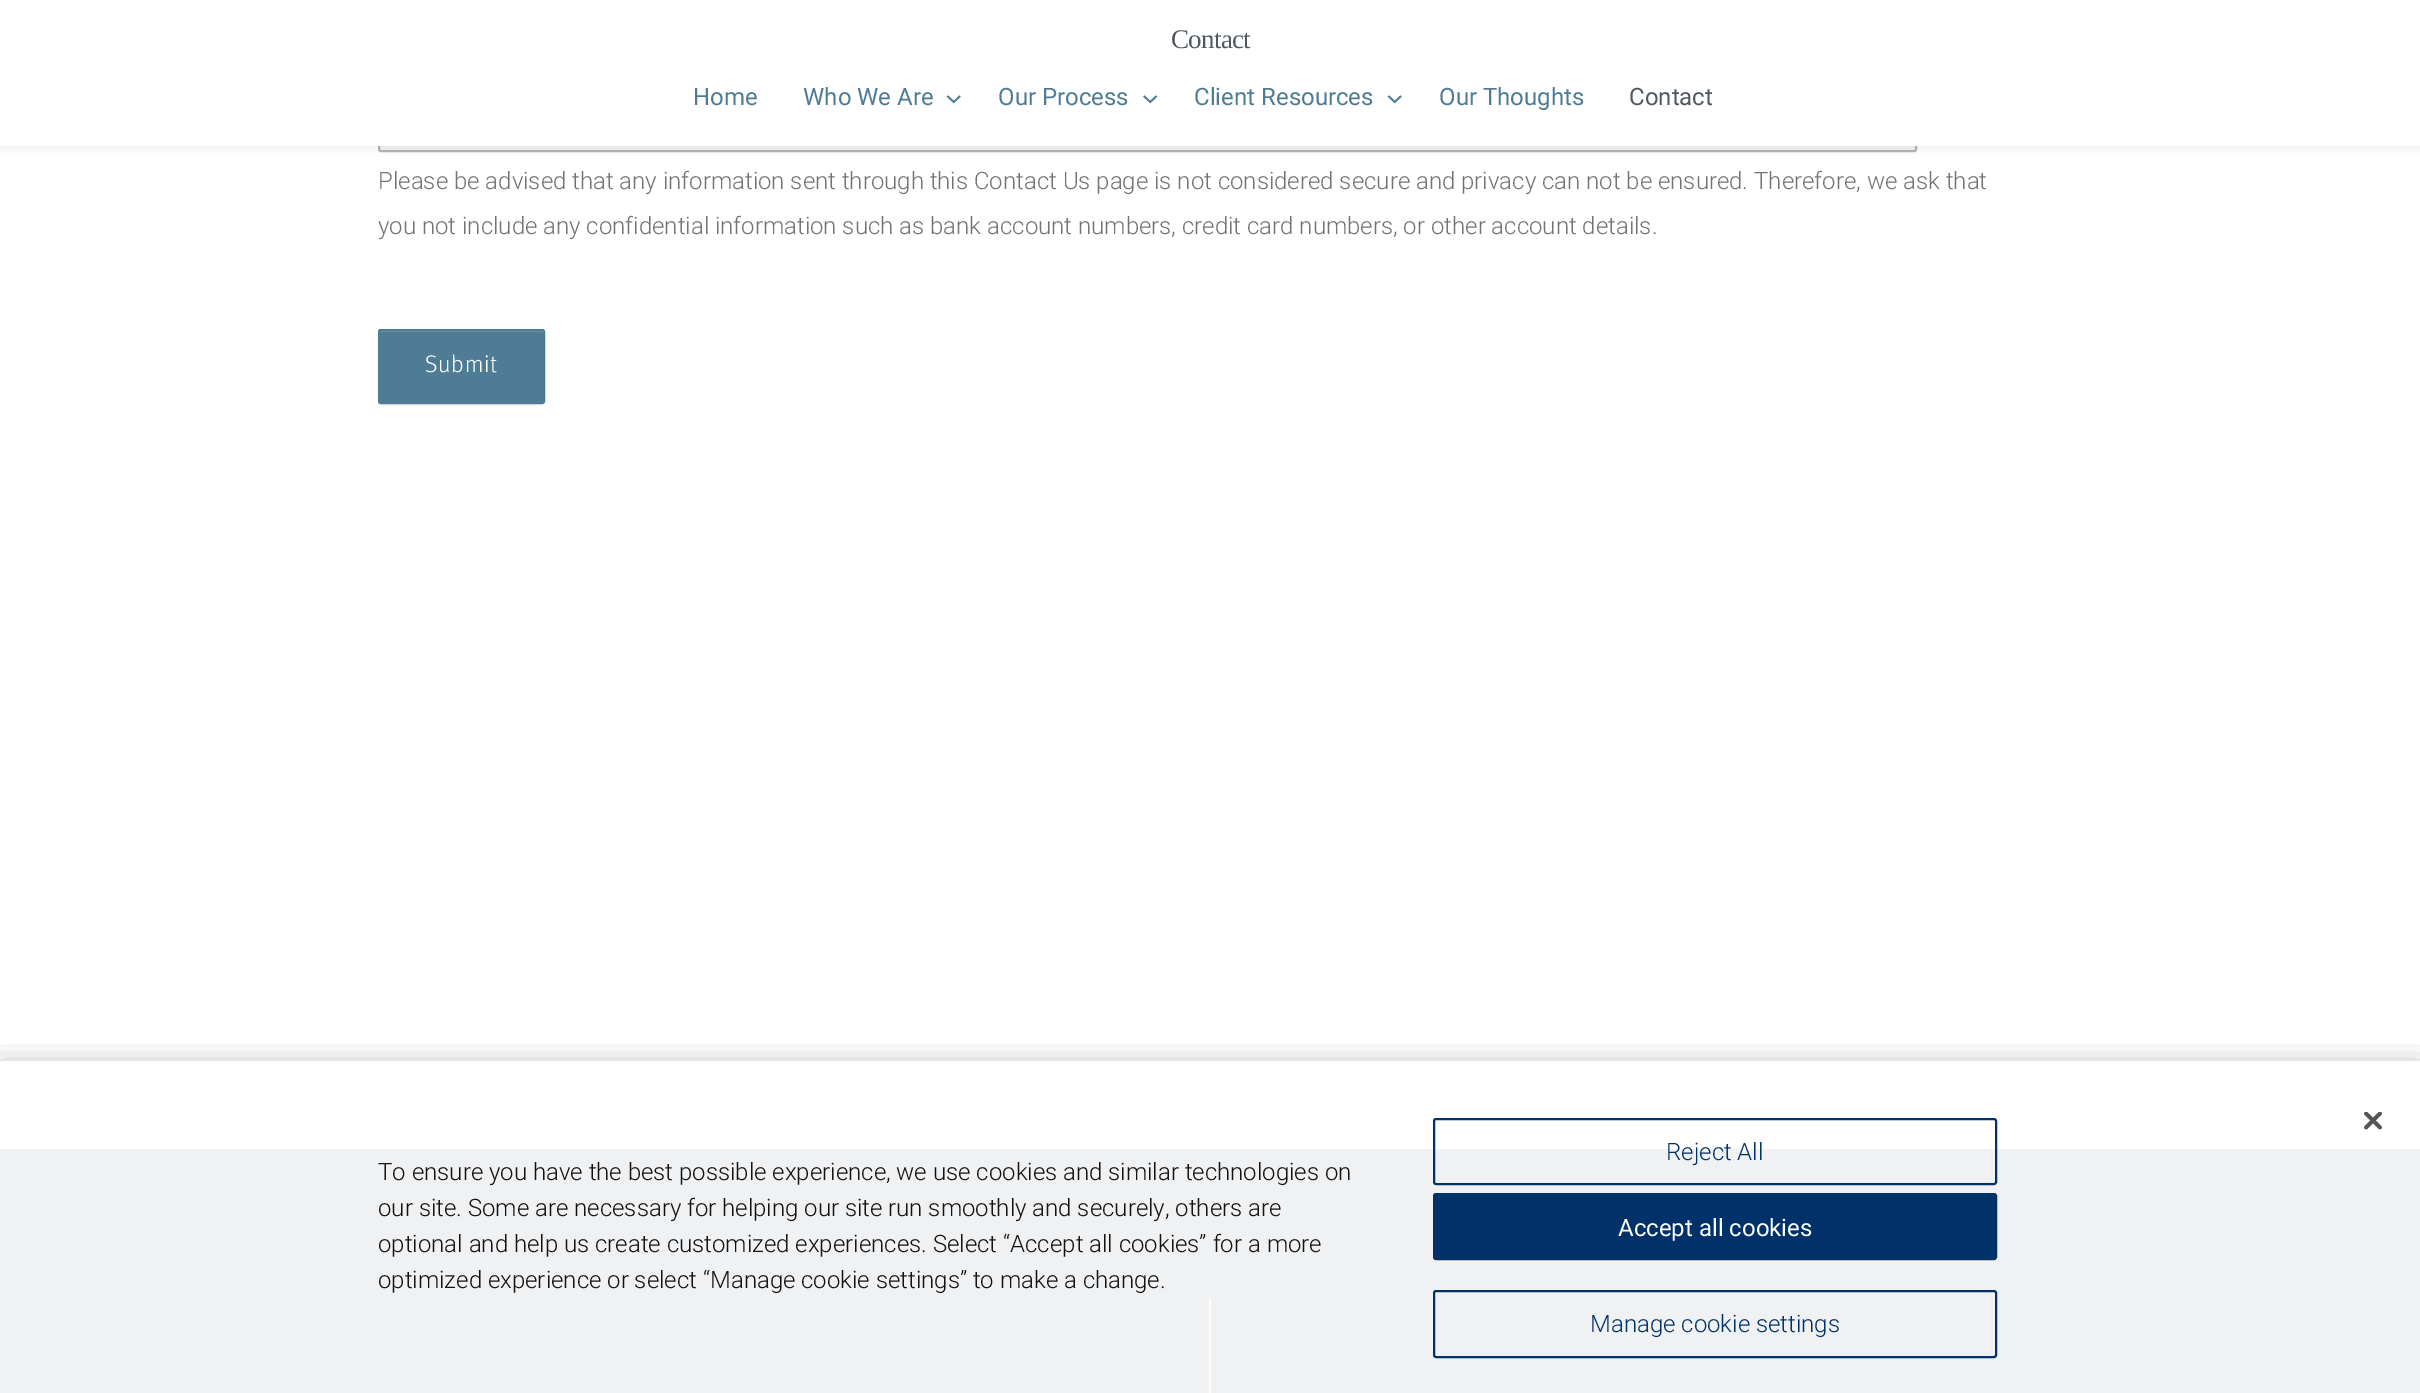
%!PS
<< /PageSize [2420 1393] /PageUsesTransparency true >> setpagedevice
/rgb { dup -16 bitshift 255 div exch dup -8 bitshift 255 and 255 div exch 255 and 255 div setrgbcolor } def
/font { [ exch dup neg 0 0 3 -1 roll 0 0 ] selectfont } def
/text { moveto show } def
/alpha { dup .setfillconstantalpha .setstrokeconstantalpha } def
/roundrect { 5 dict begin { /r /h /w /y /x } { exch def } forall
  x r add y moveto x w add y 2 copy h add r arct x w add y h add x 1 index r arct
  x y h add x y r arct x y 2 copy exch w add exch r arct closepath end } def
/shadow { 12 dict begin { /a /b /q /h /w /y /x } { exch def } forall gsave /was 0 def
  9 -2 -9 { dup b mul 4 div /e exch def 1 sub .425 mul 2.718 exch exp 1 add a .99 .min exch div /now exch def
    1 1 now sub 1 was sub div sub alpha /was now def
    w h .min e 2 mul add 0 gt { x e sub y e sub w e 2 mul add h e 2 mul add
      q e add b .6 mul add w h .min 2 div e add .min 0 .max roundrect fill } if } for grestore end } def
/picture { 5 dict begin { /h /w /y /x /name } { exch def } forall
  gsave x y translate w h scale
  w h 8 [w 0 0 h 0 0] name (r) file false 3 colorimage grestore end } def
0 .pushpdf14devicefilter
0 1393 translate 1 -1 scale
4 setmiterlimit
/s1 { /Roboto-Regular 24 font 16#4F7C95 rgb } def
/s2 { /Roboto-Regular 24 font 16#50585F rgb } def
/s3 { /Roboto-Light 24 font 16#737373 rgb } def
/s4 { /Roboto-Light 24 font 16#121212 rgb } def
/s5 { /Roboto-Light 24 font 16#003169 rgb } def
/s6 { /Roboto-Regular 24 font 16#FFFFFF rgb } def
16#FFFFFF rgb
0 0 2420 1393 rectfill
16#F3F4F5 rgb
379 -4 1537 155 2 roundrect gsave fill grestore
16#B3B3B3 rgb
2 setlinewidth
stroke
16#000000 rgb
0 -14 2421 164 0 4.5 0.05 shadow
16#FFFFFF rgb
0 0 2420 146 rectfill
/LiberationSerif-Regular 27 font
16#50585F rgb
1171 48 moveto -0.75 0 (Contact) ashow
s1
(Home) 693 105 text
(Who We Are) 803 105 text
(pic1.raw) 946 95 15 9 picture
(Our Process) 998 105 text
(pic2.raw) 1143 95 15 9 picture
(Client Resources) 1194 105 text
(pic1.raw) 1387 95 15 9 picture
(Our Thoughts) 1439 105 text
s2
(Contact) 1629 105 text
s3
(Please be advised that any information sent through this Contact Us page is not considered secure and privacy can not be ensured. Therefore, we ask that) 378 189 text
(you not include any confidential information such as bank account numbers, credit card numbers, or other account details.) 378 234 text
16#000000 rgb
378 330 167 75 3 1.5 0.05 shadow
16#4F7C95 rgb
378 329 167 75 3 roundrect fill
16#7296AA rgb
381 332 moveto 542 332 lineto 543 333 lineto 543 332 lineto 543 331 542 330 542 330 curveto 382 330 lineto 381 330 380 331 380 332 curveto 380 333 lineto 380 332 380 332 381 332 curveto closepath fill
16#4F7C95 rgb
379 330 165 73 2 roundrect stroke
/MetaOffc-Light 24 font
16#FFFFFF rgb
425 372 moveto 0.75 0 (Submit) ashow
16#F0F1F3 rgb
0 1149 2420 244 rectfill
16#FDFDFD rgb
1209 1299 2 94 rectfill
gsave
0 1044 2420 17 rectclip
16#000000 rgb
0 1061 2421 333 0 13.5 0.2 shadow
grestore
(pic3.raw) 2364 1112 18 18 picture
s4
(To ensure you have the best possible experience, we use cookies and similar technologies on) 378 1180 text
(our site. Some are necessary for helping our site run smoothly and securely, others are) 378 1216 text
(optional and help us create customized experiences. Select “Accept all cookies” for a more) 378 1252 text
(optimized experience or select “Manage cookie settings” to make a change.) 378 1288 text
16#003169 rgb
1434 1119 562 65 2 roundrect stroke
(Reject All) 1666 1160 text
1434 1194 562 65 2 roundrect gsave fill grestore
stroke
s6
(Accept all cookies) 1618 1236 text
16#003169 rgb
1434 1291 562 66 2 roundrect stroke
s5
(Manage cookie settings) 1590 1332 text
.poppdf14devicefilter showpage
